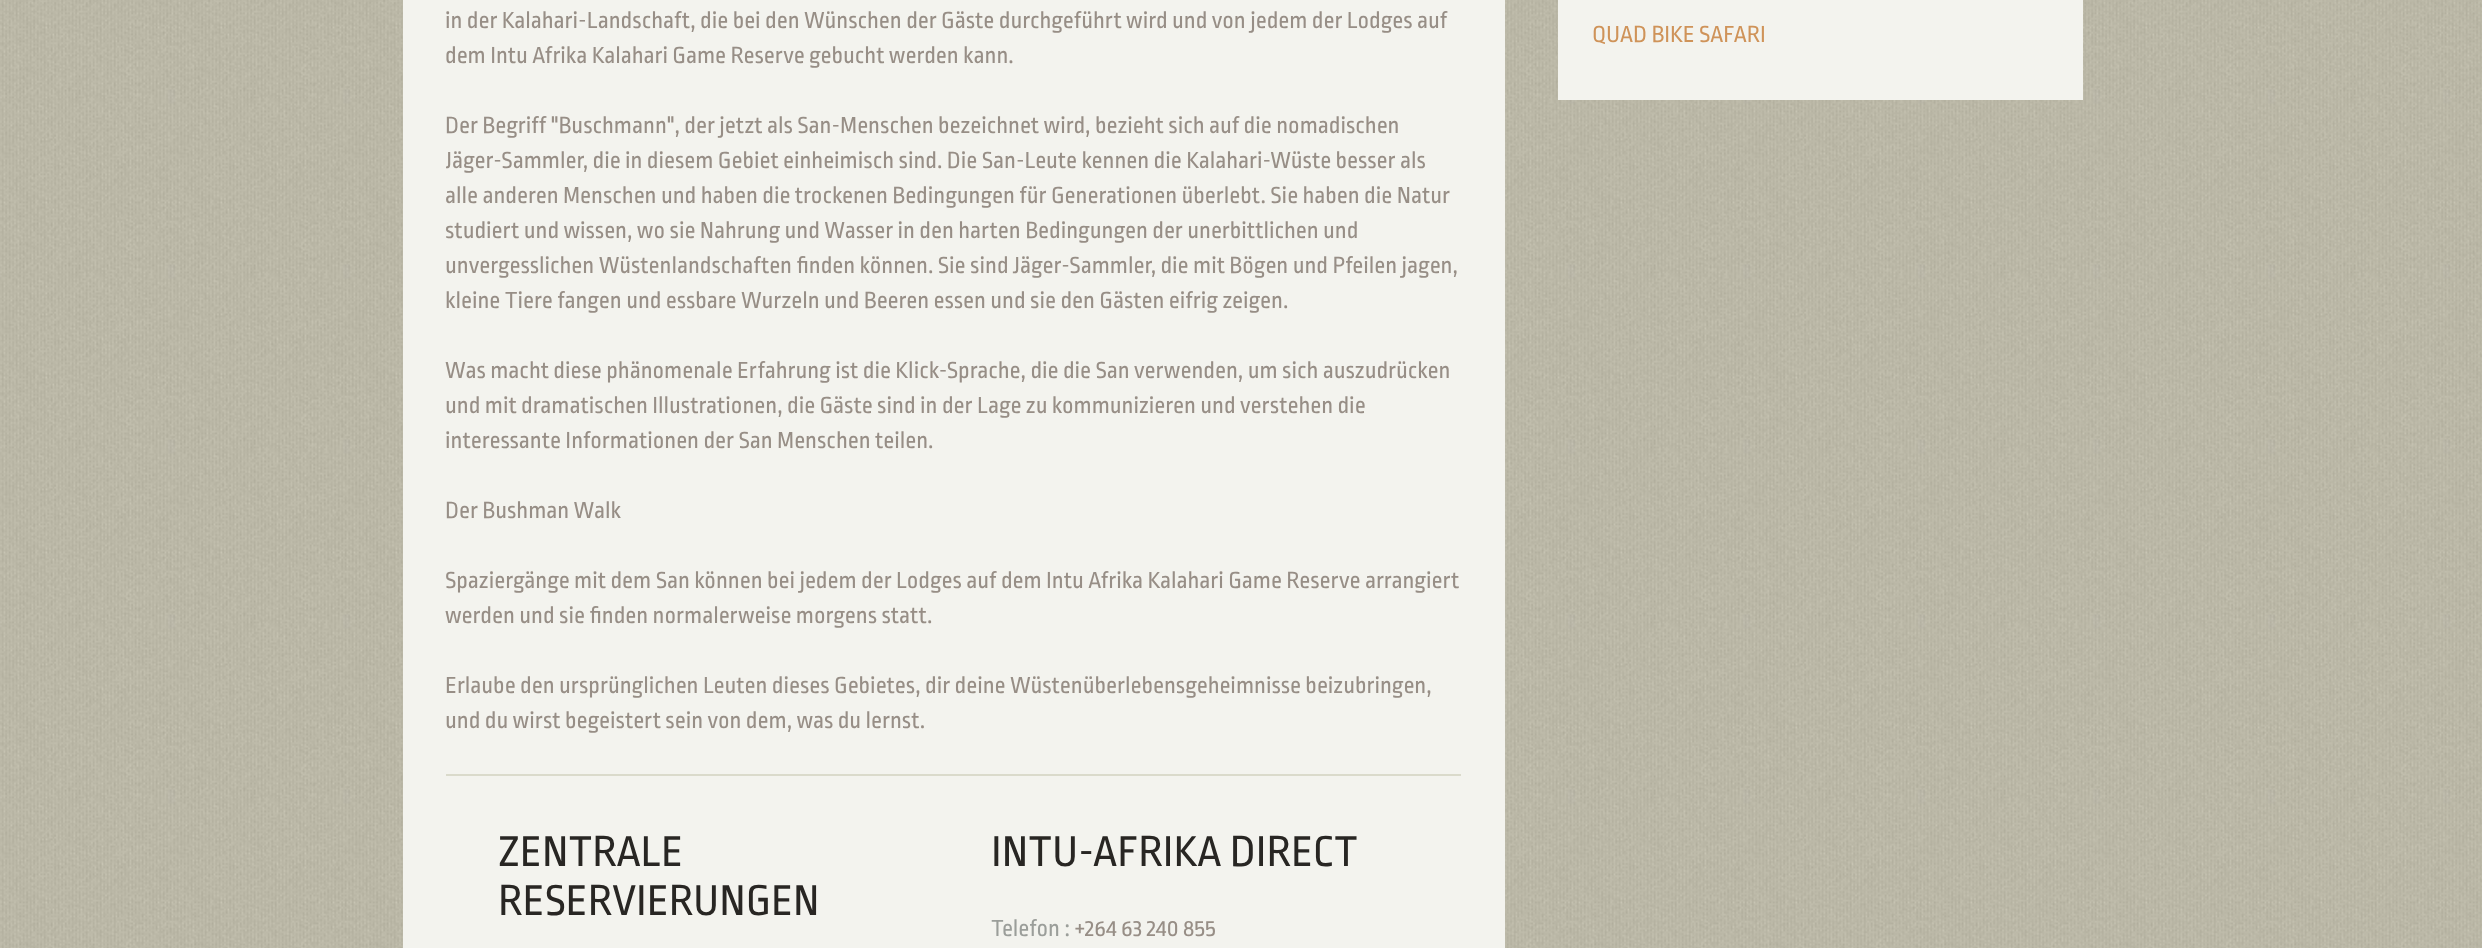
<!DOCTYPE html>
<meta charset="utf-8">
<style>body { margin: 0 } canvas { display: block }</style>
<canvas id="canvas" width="2482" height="948"></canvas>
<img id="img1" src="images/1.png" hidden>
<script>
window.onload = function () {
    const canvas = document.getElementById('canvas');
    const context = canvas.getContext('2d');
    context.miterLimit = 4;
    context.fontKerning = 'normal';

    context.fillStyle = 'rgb(255, 255, 255)';
    context.fillRect(0, 0, 2482, 948);
    context.drawImage(document.getElementById('img1'), 0, 0, 2482, 948);
    context.fillStyle = 'rgb(243, 243, 238)';
    context.fillRect(403, 0, 1102, 948);
    context.fillStyle = 'rgb(218, 218, 203)';
    context.fillRect(446, 774, 1015, 2);
    context.fillStyle = 'rgb(243, 243, 238)';
    context.fillRect(1558, 0, 525, 100);
    context.font = '24.5px Ropa Sans';
    context.fillStyle = 'rgb(151, 142, 134)';
    context.fillText('in der Kalahari-Landschaft, die bei den Wünschen der Gäste durchgeführt wird und von jedem der Lodges auf', 445, 28);
    context.fillText('dem Intu Afrika Kalahari Game Reserve gebucht werden kann.', 445, 63);
    context.fillText('Der Begriff "Buschmann", der jetzt als San-Menschen bezeichnet wird, bezieht sich auf die nomadischen', 445, 133);
    context.save();
    context.beginPath();
    context.rect(446, 0, 1015, 756);
    context.clip();
    context.fillText('Jäger-Sammler, die in diesem Gebiet', 445, 168);
    context.restore();
    context.fillText('einheimisch sind. Die San-Leute kennen die Kalahari-Wüste besser als', 783, 168);
    context.fillText('alle anderen Menschen und haben die trockenen Bedingungen für Generationen überlebt. Sie haben die Natur', 445, 203);
    context.fillText('studiert und wissen, wo sie Nahrung und Wasser in den harten Bedingungen der unerbittlichen und', 445, 238);
    context.fillText('unvergesslichen Wüstenlandschaften finden können. Sie sind Jäger-Sammler, die mit Bögen und Pfeilen jagen,', 445, 273);
    context.fillText('kleine Tiere fangen und essbare Wurzeln und Beeren essen und sie den Gästen eifrig zeigen.', 445, 308);
    context.fillText('Was macht diese phänomenale Erfahrung ist die Klick-Sprache, die die San verwenden, um sich auszudrücken', 445, 378);
    context.fillText('und mit dramatischen Illustrationen, die Gäste sind in der Lage zu kommunizieren und verstehen die', 445, 413);
    context.fillText('interessante Informationen der San Menschen teilen.', 445, 448);
    context.fillText('Der Bushman Walk', 445, 518);
    context.fillText('Spaziergänge mit dem San können bei jedem der Lodges auf dem Intu Afrika Kalahari Game Reserve arrangiert', 445, 588);
    context.fillText('werden und sie finden normalerweise morgens statt.', 445, 623);
    context.fillText('Erlaube den ursprünglichen Leuten dieses Gebietes, dir deine Wüstenüberlebensgeheimnisse beizubringen,', 445, 693);
    context.fillText('und du wirst begeistert sein von dem, was du lernst.', 445, 728);
    context.font = '45.5px Ropa Sans';
    context.fillStyle = 'rgb(40, 38, 35)';
    context.fillText('ZENTRALE', 498, 866);
    context.fillText('RESERVIERUNGEN', 498, 915);
    context.fillText('INTU-AFRIKA DIRECT', 991, 866);
    context.font = '24.5px Ropa Sans';
    context.fillStyle = 'rgb(155, 158, 154)';
    context.fillText('Telefon :', 991, 936);
    context.fillStyle = 'rgb(151, 142, 134)';
    context.fillText('+264 63 240 855', 1075, 936);
    context.fillStyle = 'rgb(207, 147, 89)';
    context.fillText('QUAD BIKE SAFARI', 1592, 42);
};
</script>
